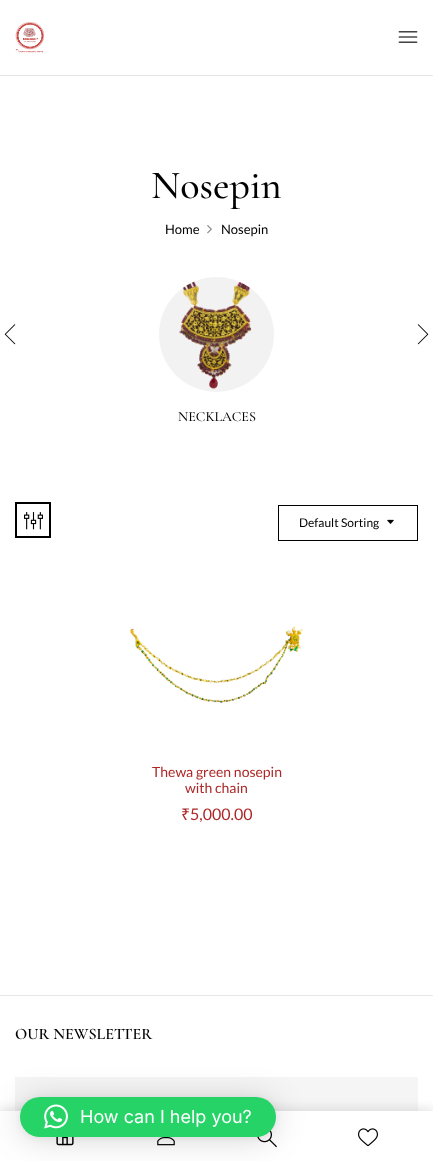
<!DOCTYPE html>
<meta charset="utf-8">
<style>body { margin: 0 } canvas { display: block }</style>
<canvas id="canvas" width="433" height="1161"></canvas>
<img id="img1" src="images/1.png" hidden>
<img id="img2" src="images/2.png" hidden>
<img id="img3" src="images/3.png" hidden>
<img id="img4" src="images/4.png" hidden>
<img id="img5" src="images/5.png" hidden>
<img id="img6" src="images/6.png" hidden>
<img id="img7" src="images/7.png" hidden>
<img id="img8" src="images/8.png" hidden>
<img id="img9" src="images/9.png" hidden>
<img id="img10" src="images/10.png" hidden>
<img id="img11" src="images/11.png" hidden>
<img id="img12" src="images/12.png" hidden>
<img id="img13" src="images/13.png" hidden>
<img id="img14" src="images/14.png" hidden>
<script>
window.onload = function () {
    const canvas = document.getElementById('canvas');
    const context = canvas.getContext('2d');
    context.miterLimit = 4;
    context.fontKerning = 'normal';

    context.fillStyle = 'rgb(255, 255, 255)';
    context.fillRect(0, 0, 433, 1161);
    context.fillStyle = 'rgb(229, 229, 229)';
    context.fillRect(0, 75, 433, 1);
    context.drawImage(document.getElementById('img1'), 15, 22, 29, 31);
    context.drawImage(document.getElementById('img2'), 398, 31, 20, 12);
    context.fillStyle = 'rgb(245, 245, 245)';
    context.fillRect(15, 1077, 403, 34);
    context.fillStyle = 'rgba(144, 144, 144, 0.3)';
    context.filter = 'blur(6px)';
    context.beginPath();
    context.rect(-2, 1110, 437, 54);
    context.fill();
    context.filter = 'none';
    context.fillStyle = 'rgb(255, 255, 255)';
    context.fillRect(0, 1111, 433, 50);
    context.drawImage(document.getElementById('img3'), 56, 1137, 18, 9);
    context.drawImage(document.getElementById('img4'), 157, 1137, 18, 9);
    context.drawImage(document.getElementById('img5'), 257, 1130, 20, 18);
    context.drawImage(document.getElementById('img6'), 358, 1128, 20, 19);
    context.drawImage(document.getElementById('img7'), 207, 225, 5, 9);
    context.drawImage(document.getElementById('img8'), 4, 324, 12, 21);
    context.drawImage(document.getElementById('img9'), 417, 324, 12, 21);
    context.drawImage(document.getElementById('img10'), 159, 277, 115, 115);
    context.strokeStyle = 'rgb(0, 0, 0)';
    context.lineWidth = 2;
    context.strokeRect(16, 503, 34, 34);
    context.drawImage(document.getElementById('img11'), 24, 512, 19, 18);
    context.lineWidth = 1;
    context.strokeRect(278.5, 505.5, 139, 35);
    context.drawImage(document.getElementById('img12'), 387, 519, 7, 5);
    context.drawImage(document.getElementById('img13'), 130, 626, 173, 77);
    context.fillStyle = 'rgb(231, 231, 231)';
    context.fillRect(0, 995, 433, 1);
    context.fillStyle = 'rgba(0, 0, 0, 0.16)';
    context.filter = 'blur(16px)';
    context.beginPath();
    context.roundRect(20, 1099, 256, 40, 20);
    context.fill();
    context.filter = 'none';
    context.fillStyle = 'rgba(0, 0, 0, 0.06)';
    context.filter = 'blur(3px)';
    context.beginPath();
    context.roundRect(20, 1098, 256, 40, 20);
    context.fill();
    context.filter = 'none';
    context.fillStyle = 'rgb(37, 211, 102)';
    context.beginPath();
    context.roundRect(20, 1097, 256, 40, 20);
    context.fill();
    context.drawImage(document.getElementById('img14'), 44, 1104, 24, 25);
    context.font = '500 40px Cormorant Garamond';
    context.fillStyle = 'rgb(0, 0, 0)';
    context.fillText('Nosepin', 151, 198);
    context.font = '13px Lato';
    context.fillText('Home', 165, 234);
    context.fillText('Nosepin', 221, 234);
    context.font = '500 14px Cormorant Garamond';
    context.fillText('NECKLACES', 178, 421);
    context.font = '12px Lato';
    context.fillText('Default Sorting', 299, 527);
    context.font = '14px Lato';
    context.fillStyle = 'rgb(173, 39, 39)';
    context.fillText('Thewa green nosepin', 152, 777);
    context.fillText('with chain', 185, 793);
    context.font = '16px Noto Sans';
    context.fillText('₹', 181, 820);
    context.font = '16px Lato';
    context.fillText('5,000.00', 190, 820);
    context.font = '600 16px Cormorant Garamond';
    context.fillStyle = 'rgb(0, 0, 0)';
    context.fillText('OUR NEWSLETTER', 15, 1039);
    context.font = '18px Inter';
    context.fillStyle = 'rgb(255, 255, 255)';
    context.fillText('How can I help you?', 80, 1123);
};
</script>
